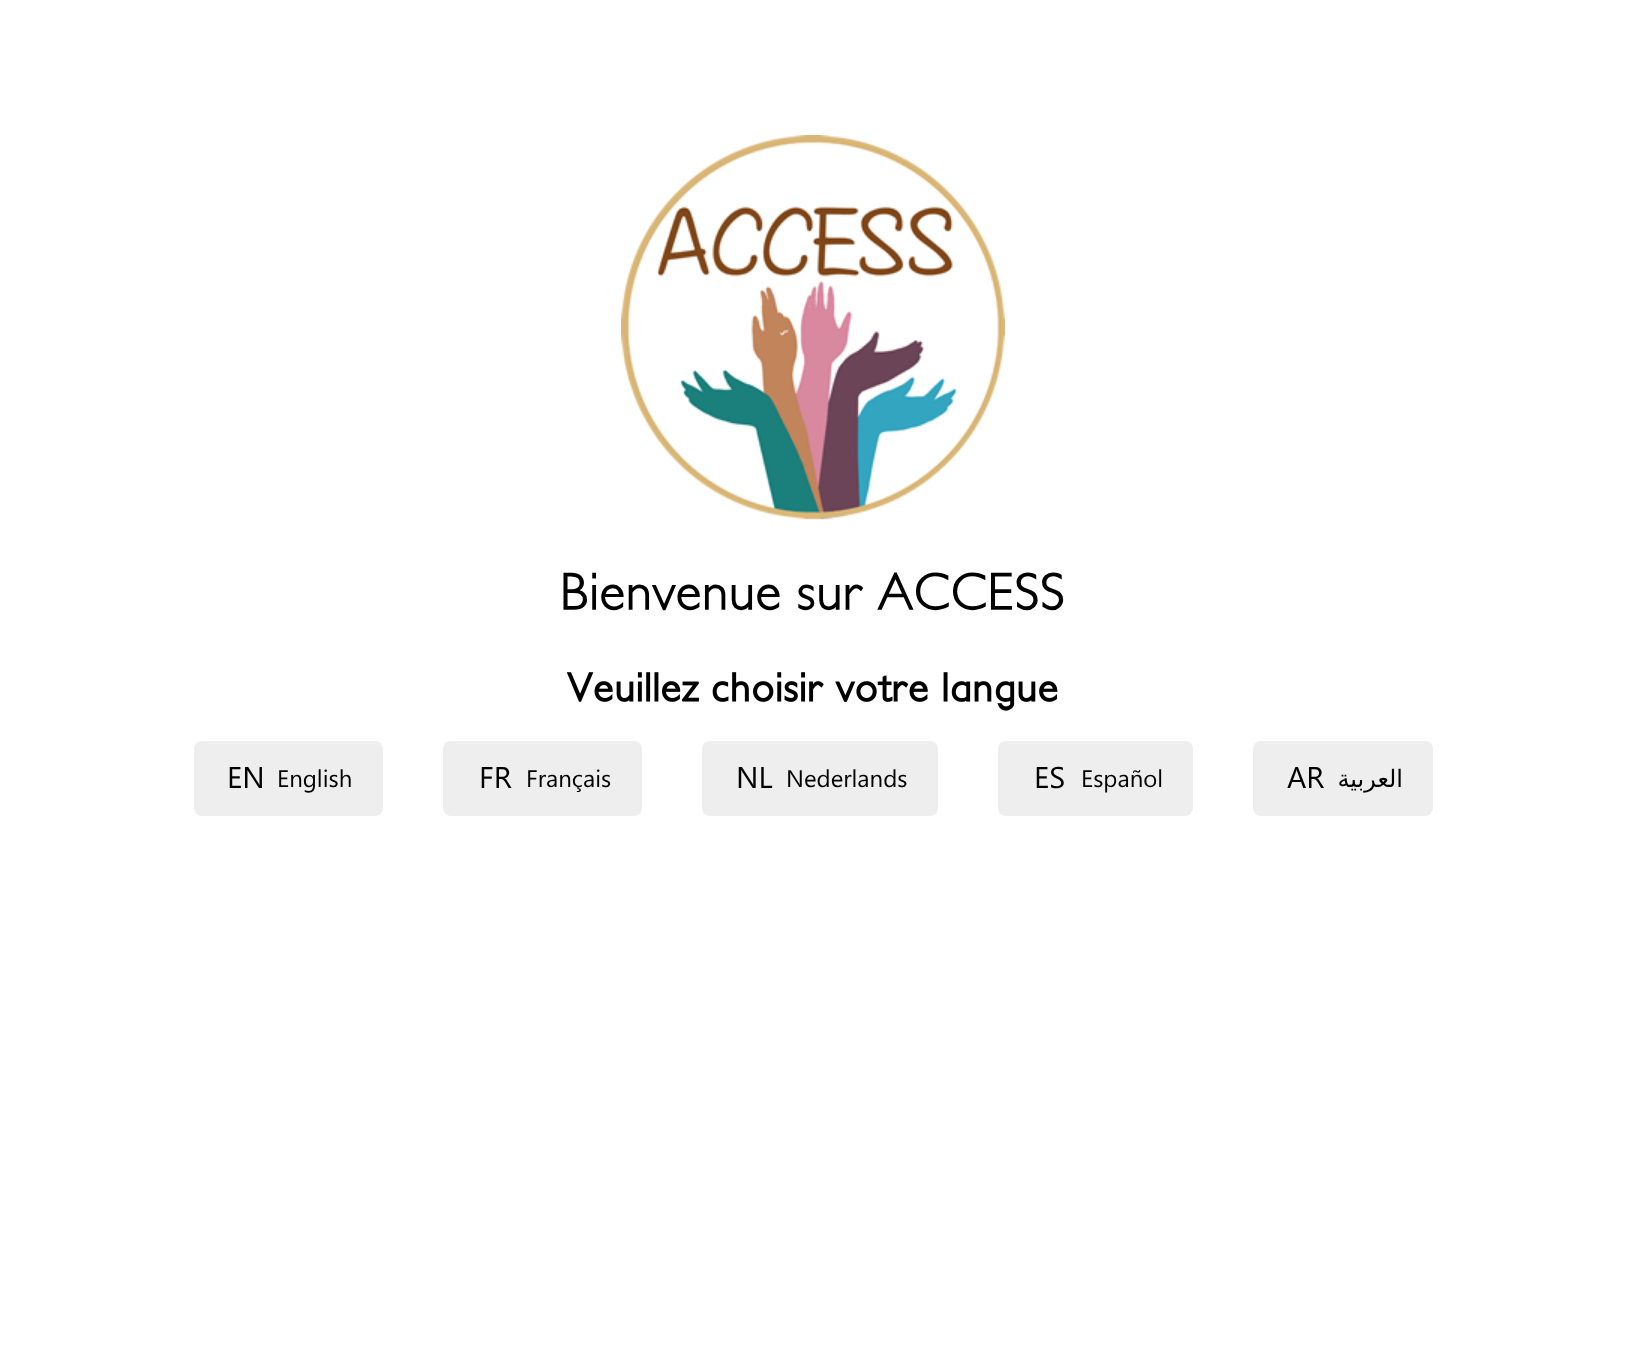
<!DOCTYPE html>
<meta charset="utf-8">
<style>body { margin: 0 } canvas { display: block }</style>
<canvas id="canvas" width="1625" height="1356"></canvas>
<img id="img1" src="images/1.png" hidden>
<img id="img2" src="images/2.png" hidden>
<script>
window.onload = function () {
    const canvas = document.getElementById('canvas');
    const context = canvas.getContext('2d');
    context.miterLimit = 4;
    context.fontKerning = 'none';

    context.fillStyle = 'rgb(255, 255, 255)';
    context.fillRect(0, 0, 1625, 1356);
    context.drawImage(document.getElementById('img1'), 621, 135, 384, 385);
    context.drawImage(document.getElementById('img2'), 566, 672, 492, 39);
    context.fillStyle = 'rgb(238, 238, 238)';
    context.beginPath();
    context.roundRect(194, 741, 189, 75, 8);
    context.fill();
    context.beginPath();
    context.roundRect(443, 741, 199, 75, 8);
    context.fill();
    context.beginPath();
    context.roundRect(702, 741, 236, 75, 8);
    context.fill();
    context.beginPath();
    context.roundRect(998, 741, 195, 75, 8);
    context.fill();
    context.beginPath();
    context.roundRect(1253, 741, 180, 75, 8);
    context.fill();
    context.font = '500 52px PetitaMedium';
    context.fillStyle = 'rgb(0, 0, 0)';
    context.fillText('Bienvenue sur ACCESS', 560, 609);
    context.font = '30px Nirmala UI';
    context.fillText('EN', 227, 788);
    context.font = '24px Nirmala UI';
    context.fillText('English', 277, 787);
    context.font = '30px Nirmala UI';
    context.fillText('FR', 479, 788);
    context.font = '24px Nirmala UI';
    context.fillText('Français', 526, 787);
    context.font = '30px Nirmala UI';
    context.fillText('NL', 736, 788);
    context.font = '24px Nirmala UI';
    context.fillText('Nederlands', 786, 787);
    context.font = '30px Nirmala UI';
    context.fillText('ES', 1034, 788);
    context.font = '24px Nirmala UI';
    context.fillText('Español', 1081, 787);
    context.font = '30px Nirmala UI';
    context.fillText('AR', 1287, 788);
    context.direction = 'rtl';
    context.font = '24px DejaVu Sans';
    context.fillText('العربية', 1403, 787);
};
</script>
